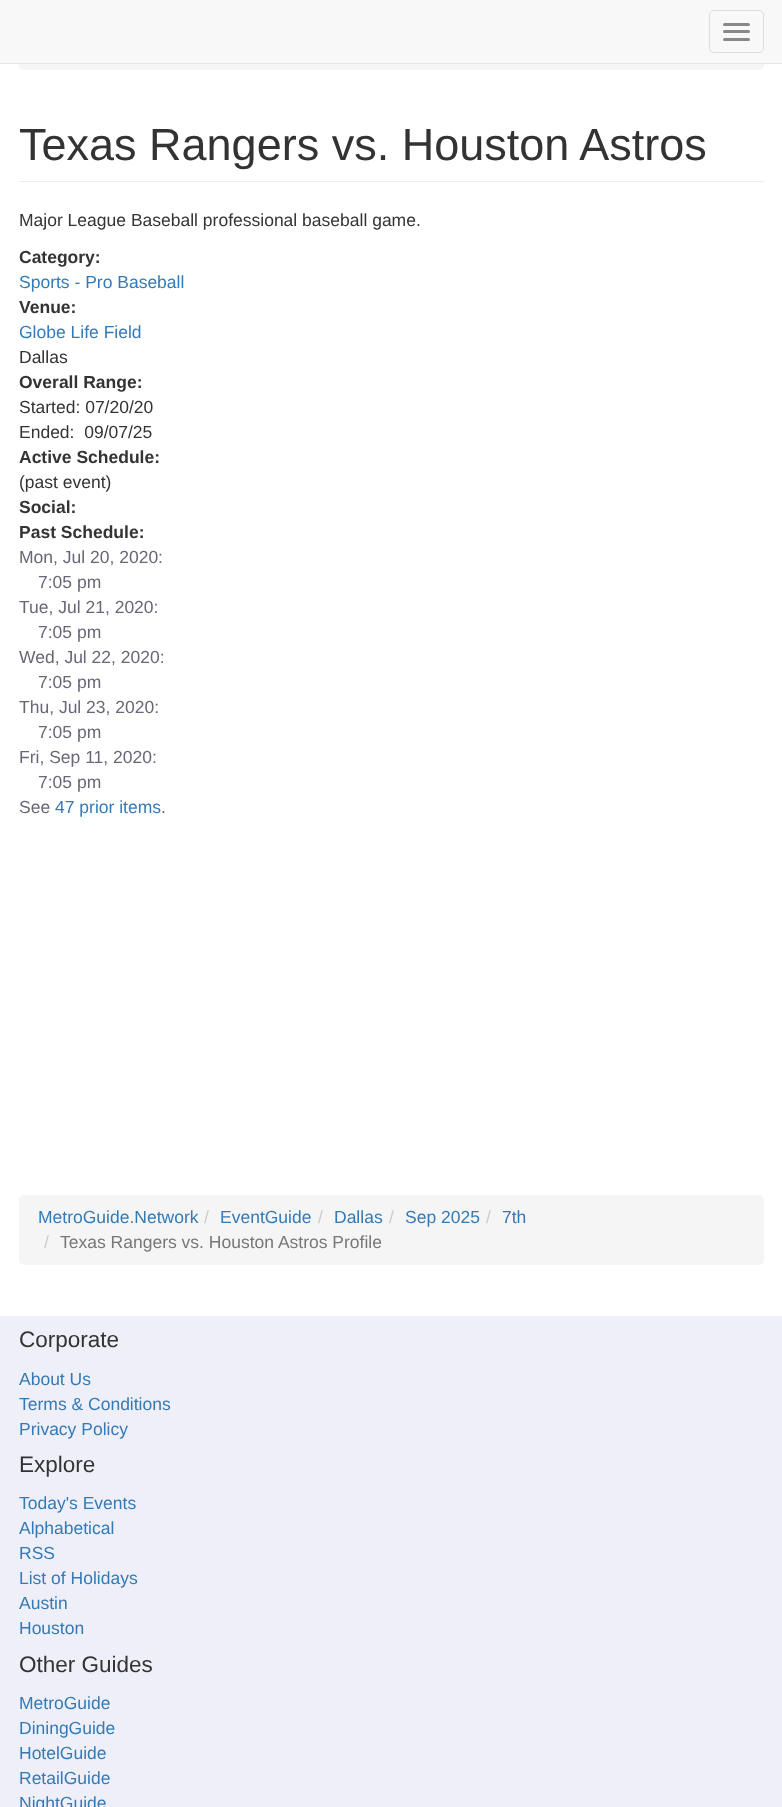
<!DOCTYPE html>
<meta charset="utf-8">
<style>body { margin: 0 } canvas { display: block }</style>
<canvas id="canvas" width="782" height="1807"></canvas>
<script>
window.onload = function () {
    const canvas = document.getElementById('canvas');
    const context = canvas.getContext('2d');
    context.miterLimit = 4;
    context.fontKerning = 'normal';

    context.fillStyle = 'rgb(255, 255, 255)';
    context.fillRect(0, 0, 782, 1807);
    context.fillStyle = 'rgb(245, 245, 245)';
    context.beginPath();
    context.roundRect(19, 0, 745, 70, 5);
    context.fill();
    context.fillStyle = 'rgb(248, 248, 248)';
    context.fillRect(0, 0, 782, 63);
    context.fillStyle = 'rgb(231, 231, 231)';
    context.fillRect(0, 63, 782, 1);
    context.beginPath();
    context.roundRect(709.5, 10.5, 54, 42, 4.5);
    context.strokeStyle = 'rgb(221, 221, 221)';
    context.stroke();
    context.fillStyle = 'rgb(136, 136, 136)';
    context.beginPath();
    context.roundRect(723, 23, 27, 3, 1.5);
    context.fill();
    context.beginPath();
    context.roundRect(723, 30, 27, 3, 1.5);
    context.fill();
    context.beginPath();
    context.roundRect(723, 38, 27, 3, 1.5);
    context.fill();
    context.fillStyle = 'rgb(238, 238, 238)';
    context.fillRect(19, 181, 745, 1);
    context.fillStyle = 'rgb(245, 245, 245)';
    context.beginPath();
    context.roundRect(19, 1195, 745, 70, 5);
    context.fill();
    context.fillStyle = 'rgb(239, 239, 250)';
    context.fillRect(0, 1316, 782, 491);
    context.font = '45px Liberation Sans';
    context.fillStyle = 'rgb(51, 51, 51)';
    context.fillText('Texas Rangers vs. Houston Astros', 19, 160);
    context.font = '17.5px Liberation Sans';
    context.fillText('Major League Baseball professional baseball game.', 19, 226);
    context.font = 'bold 17.5px Liberation Sans';
    context.fillText('Category:', 19, 263);
    context.font = '17.5px Liberation Sans';
    context.fillStyle = 'rgb(51, 122, 183)';
    context.fillText('Sports - Pro Baseball', 19, 288);
    context.font = 'bold 17.5px Liberation Sans';
    context.fillStyle = 'rgb(51, 51, 51)';
    context.fillText('Venue:', 19, 313);
    context.font = '17.5px Liberation Sans';
    context.fillStyle = 'rgb(51, 122, 183)';
    context.fillText('Globe Life Field', 19, 338);
    context.fillStyle = 'rgb(51, 51, 51)';
    context.fillText('Dallas', 19, 363);
    context.font = 'bold 17.5px Liberation Sans';
    context.fillText('Overall Range:', 19, 388);
    context.font = '17.5px Liberation Sans';
    context.fillText('Started: 07/20/20', 19, 413);
    context.fillText('Ended:  09/07/25', 19, 438);
    context.font = 'bold 17.5px Liberation Sans';
    context.fillText('Active Schedule:', 19, 463);
    context.font = '17.5px Liberation Sans';
    context.fillText('(past event)', 19, 488);
    context.font = 'bold 17.5px Liberation Sans';
    context.fillText('Social:', 19, 513);
    context.fillText('Past Schedule:', 19, 538);
    context.font = '17.5px Liberation Sans';
    context.fillStyle = 'rgb(103, 103, 119)';
    context.fillText('Mon, Jul 20, 2020:', 19, 563);
    context.fillText('7:05 pm', 38, 588);
    context.fillText('Tue, Jul 21, 2020:', 19, 613);
    context.fillText('7:05 pm', 38, 638);
    context.fillText('Wed, Jul 22, 2020:', 19, 663);
    context.fillText('7:05 pm', 38, 688);
    context.fillText('Thu, Jul 23, 2020:', 19, 713);
    context.fillText('7:05 pm', 38, 738);
    context.fillText('Fri, Sep 11, 2020:', 19, 763);
    context.fillText('7:05 pm', 38, 788);
    context.fillText('See', 19, 813);
    context.fillStyle = 'rgb(51, 122, 183)';
    context.fillText('47 prior items', 55, 813);
    context.fillStyle = 'rgb(103, 103, 119)';
    context.fillText('.', 161, 813);
    context.fillStyle = 'rgb(51, 122, 183)';
    context.fillText('MetroGuide.Network', 38, 1223);
    context.fillStyle = 'rgb(204, 204, 204)';
    context.fillText('/', 204, 1223);
    context.fillStyle = 'rgb(51, 122, 183)';
    context.fillText('EventGuide', 220, 1223);
    context.fillStyle = 'rgb(204, 204, 204)';
    context.fillText('/', 318, 1223);
    context.fillStyle = 'rgb(51, 122, 183)';
    context.fillText('Dallas', 334, 1223);
    context.fillStyle = 'rgb(204, 204, 204)';
    context.fillText('/', 389, 1223);
    context.fillStyle = 'rgb(51, 122, 183)';
    context.fillText('Sep 2025', 405, 1223);
    context.fillStyle = 'rgb(204, 204, 204)';
    context.fillText('/', 486, 1223);
    context.fillStyle = 'rgb(51, 122, 183)';
    context.fillText('7th', 502, 1223);
    context.fillStyle = 'rgb(204, 204, 204)';
    context.fillText('/', 44, 1248);
    context.fillStyle = 'rgb(119, 119, 119)';
    context.fillText('Texas Rangers vs. Houston Astros Profile', 60, 1248);
    context.font = '22.5px Liberation Sans';
    context.fillStyle = 'rgb(51, 51, 51)';
    context.fillText('Corporate', 19, 1347);
    context.font = '17.5px Liberation Sans';
    context.fillStyle = 'rgb(51, 122, 183)';
    context.fillText('About Us', 19, 1385);
    context.fillText('Terms & Conditions', 19, 1410);
    context.fillText('Privacy Policy', 19, 1435);
    context.font = '22.5px Liberation Sans';
    context.fillStyle = 'rgb(51, 51, 51)';
    context.fillText('Explore', 19, 1472);
    context.font = '17.5px Liberation Sans';
    context.fillStyle = 'rgb(51, 122, 183)';
    context.fillText('Today\'s Events', 19, 1509);
    context.fillText('Alphabetical', 19, 1534);
    context.fillText('RSS', 19, 1559);
    context.fillText('List of Holidays', 19, 1584);
    context.fillText('Austin', 19, 1609);
    context.fillText('Houston', 19, 1634);
    context.font = '22.5px Liberation Sans';
    context.fillStyle = 'rgb(51, 51, 51)';
    context.fillText('Other Guides', 19, 1672);
    context.font = '17.5px Liberation Sans';
    context.fillStyle = 'rgb(51, 122, 183)';
    context.fillText('MetroGuide', 19, 1709);
    context.fillText('DiningGuide', 19, 1734);
    context.fillText('HotelGuide', 19, 1759);
    context.fillText('RetailGuide', 19, 1784);
    context.fillText('NightGuide', 19, 1809);
};
</script>
